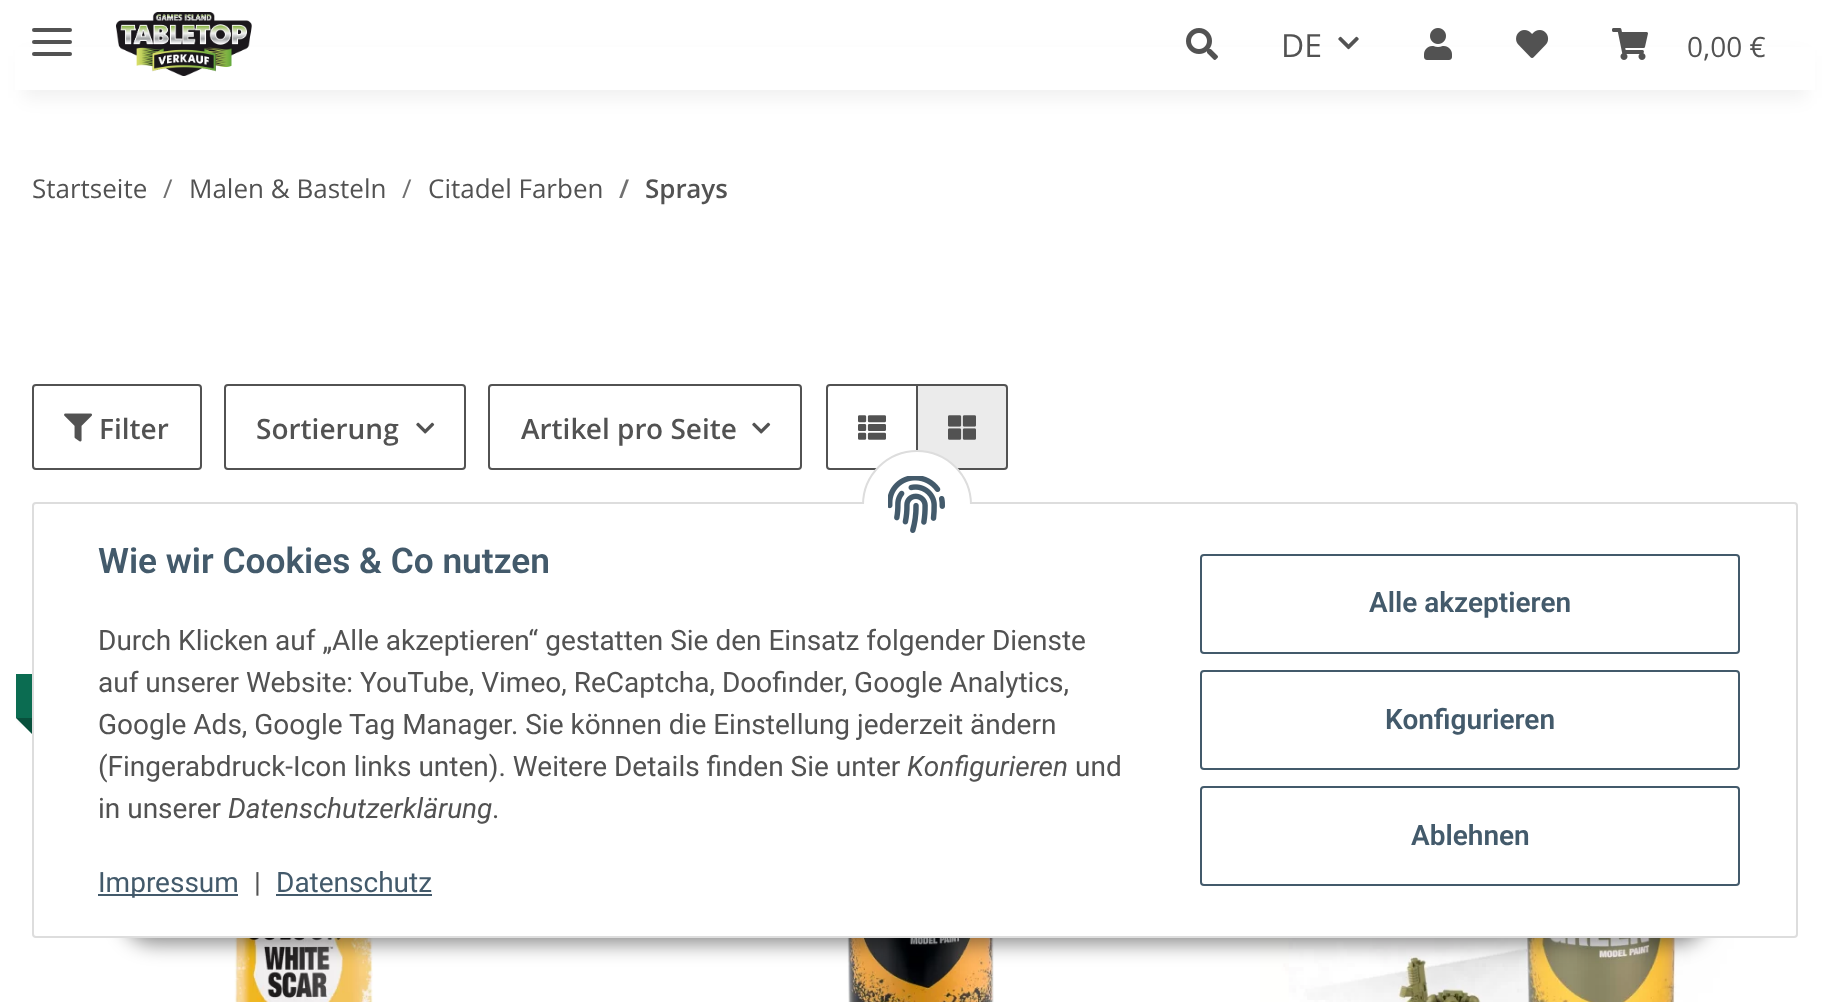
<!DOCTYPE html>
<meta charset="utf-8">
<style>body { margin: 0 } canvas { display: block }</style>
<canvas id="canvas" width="1829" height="1002"></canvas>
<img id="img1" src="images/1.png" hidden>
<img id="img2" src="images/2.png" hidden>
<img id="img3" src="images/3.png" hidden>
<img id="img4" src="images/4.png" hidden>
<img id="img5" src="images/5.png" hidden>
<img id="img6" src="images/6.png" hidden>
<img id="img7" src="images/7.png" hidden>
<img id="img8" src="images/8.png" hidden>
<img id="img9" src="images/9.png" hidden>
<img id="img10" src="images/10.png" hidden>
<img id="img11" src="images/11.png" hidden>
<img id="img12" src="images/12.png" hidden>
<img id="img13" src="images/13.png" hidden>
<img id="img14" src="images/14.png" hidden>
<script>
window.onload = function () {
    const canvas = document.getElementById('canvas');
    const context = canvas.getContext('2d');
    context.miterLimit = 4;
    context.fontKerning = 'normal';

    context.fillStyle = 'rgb(255, 255, 255)';
    context.fillRect(0, 0, 1829, 1002);
    context.fillStyle = 'rgba(0, 0, 0, 0.06)';
    context.filter = 'blur(9px)';
    context.beginPath();
    context.rect(24, 56, 1782, 42);
    context.fill();
    context.filter = 'none';
    context.fillStyle = 'rgb(255, 255, 255)';
    context.fillRect(15, 47, 1800, 43);
    context.fillStyle = 'rgb(82, 82, 82)';
    context.beginPath();
    context.roundRect(32, 40, 40, 4, 2);
    context.fill();
    context.beginPath();
    context.roundRect(32, 28, 40, 4, 2);
    context.fill();
    context.beginPath();
    context.roundRect(32, 52, 40, 4, 2);
    context.fill();
    context.drawImage(document.getElementById('img1'), 116, 12, 136, 64);
    context.drawImage(document.getElementById('img2'), 1186, 28, 32, 32);
    context.drawImage(document.getElementById('img3'), 1338, 36, 21, 14);
    context.drawImage(document.getElementById('img4'), 1424, 28, 28, 32);
    context.drawImage(document.getElementById('img5'), 1516, 30, 33, 28);
    context.drawImage(document.getElementById('img6'), 1612, 28, 36, 32);
    context.beginPath();
    context.roundRect(33, 385, 168, 84, 3);
    context.strokeStyle = 'rgb(82, 82, 82)';
    context.lineWidth = 2;
    context.stroke();
    context.drawImage(document.getElementById('img7'), 64, 413, 28, 29);
    context.beginPath();
    context.roundRect(225, 385, 240, 84, 3);
    context.stroke();
    context.drawImage(document.getElementById('img8'), 416, 422, 19, 12);
    context.beginPath();
    context.roundRect(489, 385, 312, 84, 3);
    context.stroke();
    context.drawImage(document.getElementById('img8'), 752, 422, 19, 12);
    context.beginPath();
    context.roundRect(827, 385, 90, 84, [3, 0, 0, 3]);
    context.stroke();
    context.drawImage(document.getElementById('img9'), 858, 415, 28, 25);
    context.fillStyle = 'rgb(235, 235, 235)';
    context.beginPath();
    context.roundRect(917, 385, 90, 84, [0, 3, 3, 0]);
    context.fill();
    context.stroke();
    context.drawImage(document.getElementById('img10'), 948, 415, 28, 25);
    context.fillStyle = 'rgba(0, 0, 0, 0.3)';
    context.filter = 'blur(2px)';
    context.beginPath();
    context.roundRect(20, 678, 160, 44, 4);
    context.fill();
    context.filter = 'none';
    context.fillStyle = 'rgb(11, 108, 81)';
    context.fillRect(16, 674, 16, 44);
    context.fillStyle = 'rgb(8, 80, 60)';
    context.beginPath();
    context.moveTo(32, 718);
    context.lineTo(32, 734);
    context.lineTo(16, 718);
    context.closePath();
    context.fill();
    context.drawImage(document.getElementById('img11'), 234, 938, 139, 64);
    context.drawImage(document.getElementById('img12'), 847, 938, 147, 64);
    context.drawImage(document.getElementById('img13'), 1259, 938, 515, 64);
    context.fillStyle = 'rgba(0, 0, 0, 0.45)';
    context.filter = 'blur(10px)';
    context.beginPath();
    context.roundRect(122, 880, 1586, 64, 32);
    context.fill();
    context.filter = 'none';
    context.fillStyle = 'rgb(255, 255, 255)';
    context.beginPath();
    context.roundRect(33, 503, 1764, 434, 3);
    context.fill();
    context.strokeStyle = 'rgb(221, 221, 221)';
    context.stroke();
    context.beginPath();
    context.arc(917, 505, 54, 0, 2 * Math.PI);
    context.fill();
    context.stroke();
    context.fillRect(862, 504, 110, 56);
    context.drawImage(document.getElementById('img14'), 888, 476, 57, 57);
    context.fillStyle = 'rgb(67, 90, 107)';
    context.fillRect(98, 894, 140, 2);
    context.fillRect(276, 894, 156, 2);
    context.beginPath();
    context.roundRect(1201, 555, 538, 98, 3);
    context.strokeStyle = 'rgb(67, 90, 107)';
    context.stroke();
    context.beginPath();
    context.roundRect(1201, 671, 538, 98, 3);
    context.stroke();
    context.beginPath();
    context.roundRect(1201, 787, 538, 98, 3);
    context.stroke();
    context.font = '32px Open Sans';
    context.fillStyle = 'rgb(82, 82, 82)';
    context.fillText('DE', 1281, 57);
    context.font = '28px Open Sans';
    context.fillText('0,00 €', 1687, 57);
    context.font = '26px Open Sans';
    context.fillText('Startseite', 32, 198);
    context.fillStyle = 'rgb(112, 112, 112)';
    context.fillText('/', 163, 198);
    context.fillStyle = 'rgb(82, 82, 82)';
    context.fillText('Malen & Basteln', 189, 198);
    context.fillStyle = 'rgb(112, 112, 112)';
    context.fillText('/', 402, 198);
    context.fillStyle = 'rgb(82, 82, 82)';
    context.fillText('Citadel Farben', 428, 198);
    context.font = '600 26px Open Sans';
    context.fillStyle = 'rgb(112, 112, 112)';
    context.fillText('/', 619, 198);
    context.fillStyle = 'rgb(82, 82, 82)';
    context.fillText('Sprays', 645, 198);
    context.font = '600 28px Open Sans';
    context.fillText('Filter', 99, 439);
    context.fillText('Sortierung', 256, 439);
    context.fillText('Artikel pro Seite', 521, 439);
    context.font = '600 35.25px Roboto';
    context.fillStyle = 'rgb(67, 90, 107)';
    context.fillText('Wie wir Cookies & Co nutzen', 98, 573);
    context.font = '28px Roboto';
    context.fillStyle = 'rgb(82, 82, 82)';
    context.fillText('Durch Klicken auf „Alle akzeptieren“ gestatten Sie den Einsatz folgender Dienste', 98, 650);
    context.fillText('auf unserer Website: YouTube, Vimeo, ReCaptcha, Doofinder, Google Analytics,', 98, 692);
    context.fillText('Google Ads, Google Tag Manager. Sie können die Einstellung jederzeit ändern', 98, 734);
    context.fillText('(Fingerabdruck-Icon links unten). Weitere Details finden Sie unter', 98, 776);
    context.font = 'italic 28px Roboto';
    context.fillText('Konfigurieren', 907, 776);
    context.font = '28px Roboto';
    context.fillText('und', 1075, 776);
    context.fillText('in unserer', 98, 818);
    context.font = 'italic 28px Roboto';
    context.fillText('Datenschutzerklärung', 228, 818);
    context.font = '28px Roboto';
    context.fillText('.', 492, 818);
    context.fillStyle = 'rgb(67, 90, 107)';
    context.fillText('Impressum', 98, 892);
    context.fillStyle = 'rgb(82, 82, 82)';
    context.fillText('|', 254, 892);
    context.fillStyle = 'rgb(67, 90, 107)';
    context.fillText('Datenschutz', 276, 892);
    context.font = '600 28px Roboto';
    context.fillText('Alle akzeptieren', 1369, 612);
    context.fillText('Konfigurieren', 1385, 729);
    context.fillText('Ablehnen', 1411, 845);
};
</script>
